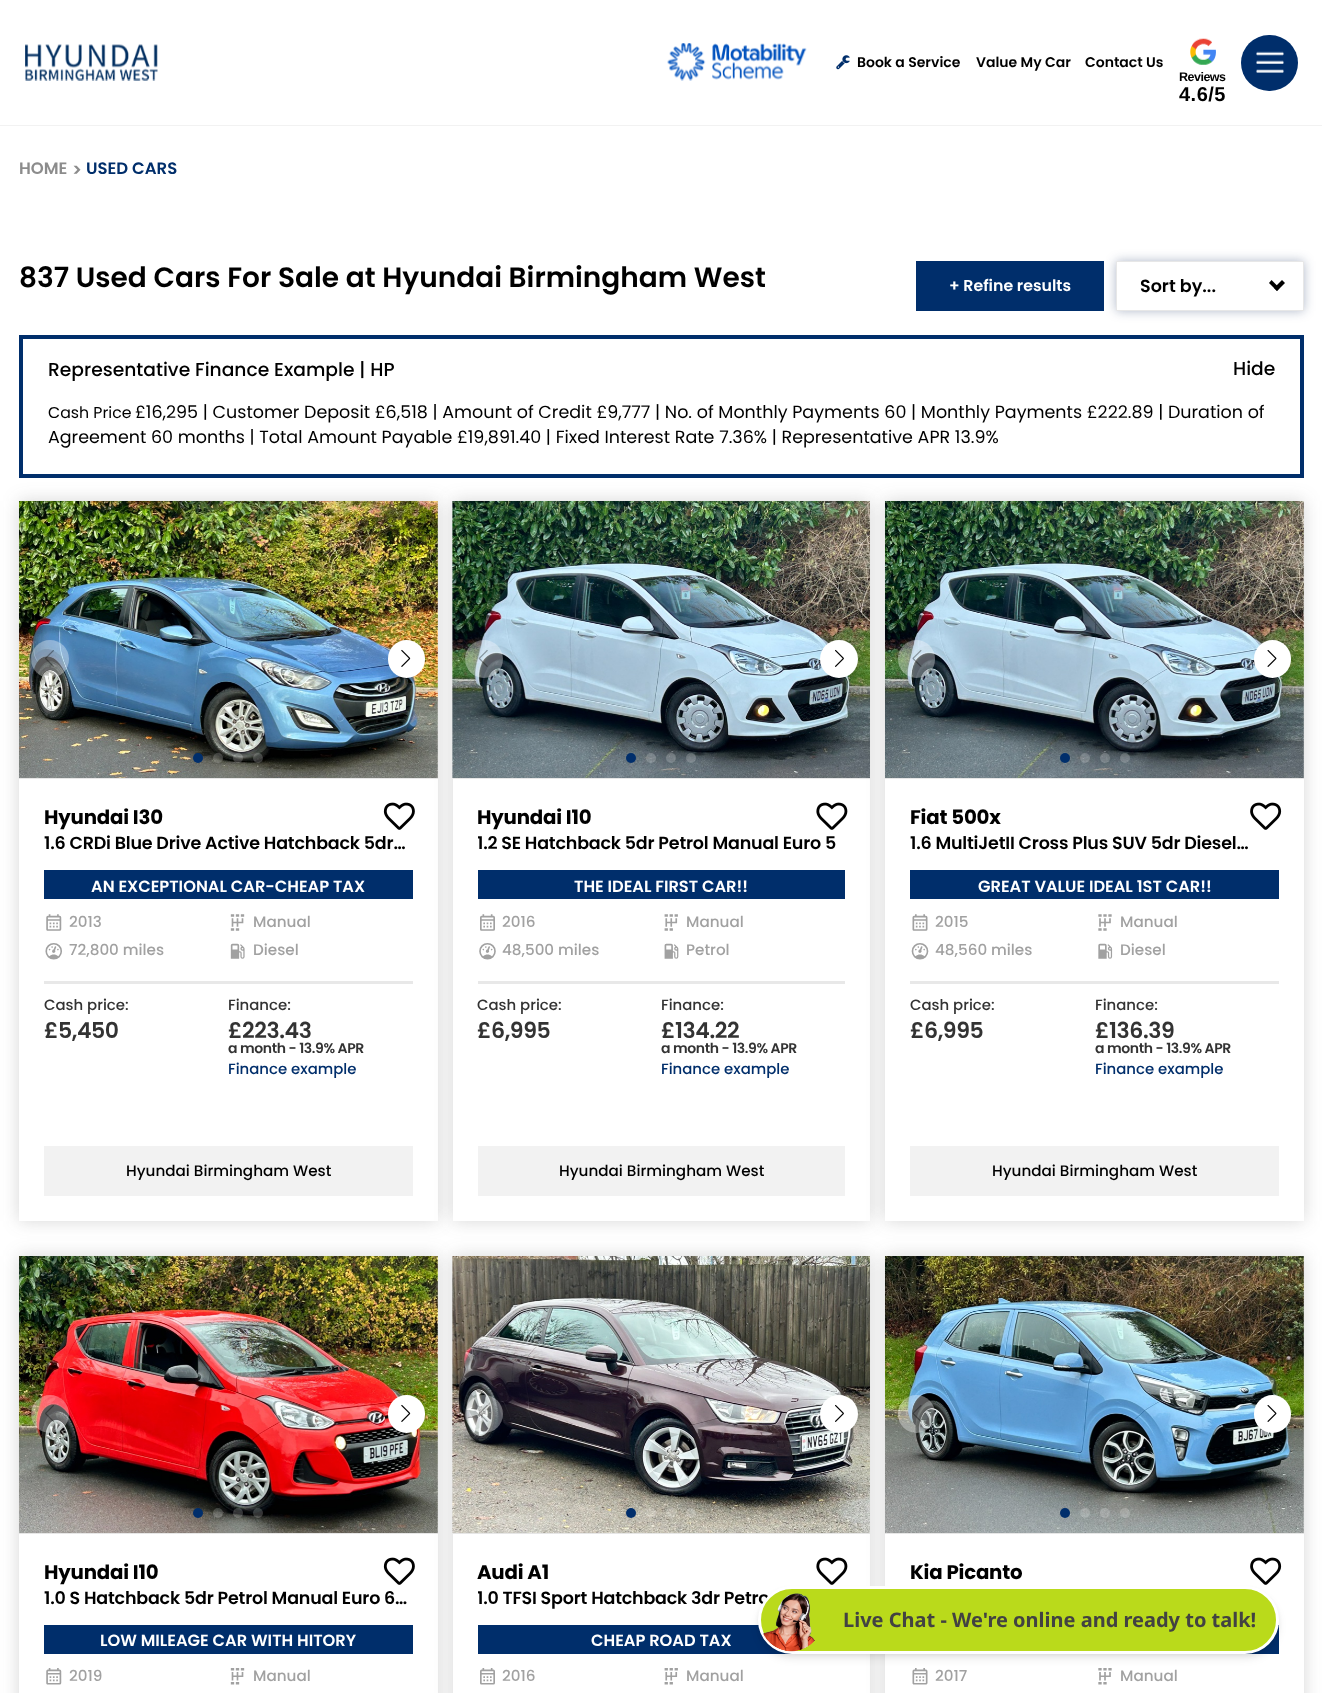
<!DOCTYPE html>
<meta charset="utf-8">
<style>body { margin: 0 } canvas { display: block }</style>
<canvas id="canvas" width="1322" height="1693"></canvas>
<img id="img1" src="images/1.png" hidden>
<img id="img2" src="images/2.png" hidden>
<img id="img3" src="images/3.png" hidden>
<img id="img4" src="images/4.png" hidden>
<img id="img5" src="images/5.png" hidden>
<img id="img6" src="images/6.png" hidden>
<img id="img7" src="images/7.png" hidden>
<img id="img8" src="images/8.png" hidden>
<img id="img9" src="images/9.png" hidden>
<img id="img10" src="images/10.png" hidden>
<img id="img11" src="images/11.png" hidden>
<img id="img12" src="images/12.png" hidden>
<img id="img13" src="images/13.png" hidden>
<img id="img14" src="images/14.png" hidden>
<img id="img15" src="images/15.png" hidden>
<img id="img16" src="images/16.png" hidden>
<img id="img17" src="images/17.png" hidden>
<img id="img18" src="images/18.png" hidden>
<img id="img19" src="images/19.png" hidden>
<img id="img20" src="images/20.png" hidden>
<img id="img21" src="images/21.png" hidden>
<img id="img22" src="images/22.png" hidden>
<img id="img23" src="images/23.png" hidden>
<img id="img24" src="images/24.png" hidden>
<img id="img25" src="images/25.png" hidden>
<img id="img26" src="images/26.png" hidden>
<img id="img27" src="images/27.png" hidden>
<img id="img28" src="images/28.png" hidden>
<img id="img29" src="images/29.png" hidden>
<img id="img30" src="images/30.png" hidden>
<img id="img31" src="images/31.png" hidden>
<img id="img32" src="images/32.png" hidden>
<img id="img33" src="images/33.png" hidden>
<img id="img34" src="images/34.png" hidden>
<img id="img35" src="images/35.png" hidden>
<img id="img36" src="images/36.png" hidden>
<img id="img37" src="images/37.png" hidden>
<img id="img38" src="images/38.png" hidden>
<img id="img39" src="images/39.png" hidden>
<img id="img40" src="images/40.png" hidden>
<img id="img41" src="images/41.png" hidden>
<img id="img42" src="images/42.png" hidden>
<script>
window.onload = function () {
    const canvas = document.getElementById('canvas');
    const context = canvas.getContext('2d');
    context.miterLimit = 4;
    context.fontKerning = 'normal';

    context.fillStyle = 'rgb(255, 255, 255)';
    context.fillRect(0, 0, 1322, 1693);
    context.fillStyle = 'rgb(242, 242, 242)';
    context.beginPath();
    context.moveTo(0, 125);
    context.lineTo(0, 126);
    context.lineTo(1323, 126);
    context.lineTo(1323, 1);
    context.lineTo(1322, 1);
    context.lineTo(1322, 125);
    context.closePath();
    context.fill();
    context.drawImage(document.getElementById('img1'), 25, 44, 133, 37);
    context.drawImage(document.getElementById('img2'), 667, 43, 140, 38);
    context.drawImage(document.getElementById('img3'), 836, 55, 14, 15);
    context.fillStyle = 'rgb(0, 46, 107)';
    context.beginPath();
    context.roundRect(1241, 35, 57, 56, 28);
    context.fill();
    context.drawImage(document.getElementById('img4'), 1256, 51, 28, 22);
    context.drawImage(document.getElementById('img5'), 1190, 38, 26, 27);
    context.fillRect(916, 261, 188, 50);
    context.fillStyle = 'rgba(2, 26, 81, 0.31)';
    context.filter = 'blur(5.5px)';
    context.beginPath();
    context.rect(1116, 261, 188, 50);
    context.fill();
    context.filter = 'none';
    context.fillStyle = 'rgb(255, 255, 255)';
    context.beginPath();
    context.rect(1116.5, 261.5, 187, 49);
    context.fill();
    context.strokeStyle = 'rgb(231, 231, 231)';
    context.stroke();
    context.fillStyle = 'rgb(0, 0, 0)';
    context.beginPath();
    context.moveTo(1285, 283);
    context.lineTo(1277, 291);
    context.lineTo(1274, 288);
    context.lineTo(1282, 280);
    context.closePath();
    context.fill();
    context.beginPath();
    context.moveTo(1279.5, 288);
    context.lineTo(1277, 291);
    context.lineTo(1269, 283);
    context.lineTo(1271.5, 280);
    context.closePath();
    context.fill();
    context.strokeStyle = 'rgb(0, 46, 107)';
    context.lineWidth = 4;
    context.strokeRect(21, 337, 1281, 139);
    context.fillStyle = 'rgba(62, 62, 62, 0.21)';
    context.filter = 'blur(9px)';
    context.beginPath();
    context.rect(19, 501, 419, 720);
    context.fill();
    context.filter = 'none';
    context.fillStyle = 'rgb(255, 255, 255)';
    context.fillRect(19, 501, 419, 720);
    context.fillStyle = 'rgb(230, 230, 230)';
    context.fillRect(19, 778, 419, 1);
    context.fillStyle = 'rgba(62, 62, 62, 0.21)';
    context.filter = 'blur(9px)';
    context.beginPath();
    context.rect(453, 501, 417, 720);
    context.fill();
    context.filter = 'none';
    context.drawImage(document.getElementById('img6'), 19, 501, 419, 277);
    context.fillStyle = 'rgba(255, 255, 255, 0.35)';
    context.beginPath();
    context.arc(50, 659, 19, 0, 2 * Math.PI);
    context.fill();
    context.drawImage(document.getElementById('img7'), 45, 650, 9, 17);
    context.fillStyle = 'rgb(255, 255, 255)';
    context.beginPath();
    context.roundRect(388, 640, 37, 38, 18.5);
    context.fill();
    context.drawImage(document.getElementById('img8'), 401, 649, 10, 18);
    context.fillStyle = 'rgb(0, 46, 107)';
    context.beginPath();
    context.arc(198, 758, 5, 0, 2 * Math.PI);
    context.fill();
    context.fillStyle = 'rgba(255, 255, 255, 0.2)';
    context.beginPath();
    context.arc(218, 758, 5, 0, 2 * Math.PI);
    context.fill();
    context.beginPath();
    context.arc(238, 758, 5, 0, 2 * Math.PI);
    context.fill();
    context.beginPath();
    context.arc(258, 758, 5, 0, 2 * Math.PI);
    context.fill();
    context.drawImage(document.getElementById('img9'), 383, 802, 32, 28);
    context.fillStyle = 'rgb(0, 46, 107)';
    context.fillRect(44, 870, 369, 29);
    context.drawImage(document.getElementById('img10'), 46, 914, 16, 17);
    context.drawImage(document.getElementById('img11'), 230, 914, 15, 17);
    context.drawImage(document.getElementById('img12'), 45, 943, 17, 17);
    context.drawImage(document.getElementById('img13'), 230, 943, 15, 16);
    context.fillStyle = 'rgb(232, 232, 232)';
    context.fillRect(44, 981, 369, 3);
    context.fillStyle = 'rgb(242, 242, 242)';
    context.fillRect(44, 1146, 369, 50);
    context.fillStyle = 'rgb(255, 255, 255)';
    context.fillRect(453, 779, 417, 442);
    context.fillStyle = 'rgb(230, 230, 230)';
    context.fillRect(453, 778, 417, 1);
    context.fillStyle = 'rgba(62, 62, 62, 0.21)';
    context.filter = 'blur(9px)';
    context.beginPath();
    context.rect(885, 501, 419, 720);
    context.fill();
    context.filter = 'none';
    context.drawImage(document.getElementById('img14'), 452, 501, 418, 277);
    context.fillStyle = 'rgba(255, 255, 255, 0.35)';
    context.beginPath();
    context.arc(484, 659, 19, 0, 2 * Math.PI);
    context.fill();
    context.drawImage(document.getElementById('img15'), 478, 650, 10, 17);
    context.fillStyle = 'rgb(255, 255, 255)';
    context.beginPath();
    context.arc(839, 659, 19, 0, 2 * Math.PI);
    context.fill();
    context.drawImage(document.getElementById('img16'), 835, 649, 9, 18);
    context.fillStyle = 'rgb(0, 46, 107)';
    context.beginPath();
    context.arc(631, 758, 5, 0, 2 * Math.PI);
    context.fill();
    context.fillStyle = 'rgba(255, 255, 255, 0.2)';
    context.beginPath();
    context.arc(651, 758, 5, 0, 2 * Math.PI);
    context.fill();
    context.beginPath();
    context.arc(671, 758, 5, 0, 2 * Math.PI);
    context.fill();
    context.beginPath();
    context.arc(691, 758, 5, 0, 2 * Math.PI);
    context.fill();
    context.drawImage(document.getElementById('img17'), 816, 802, 32, 28);
    context.fillStyle = 'rgb(0, 46, 107)';
    context.fillRect(478, 870, 367, 29);
    context.drawImage(document.getElementById('img18'), 480, 914, 15, 17);
    context.drawImage(document.getElementById('img19'), 664, 914, 14, 17);
    context.drawImage(document.getElementById('img20'), 479, 943, 17, 17);
    context.drawImage(document.getElementById('img21'), 664, 943, 15, 16);
    context.fillStyle = 'rgb(232, 232, 232)';
    context.fillRect(478, 981, 367, 3);
    context.fillStyle = 'rgb(242, 242, 242)';
    context.fillRect(478, 1146, 367, 50);
    context.fillStyle = 'rgb(255, 255, 255)';
    context.fillRect(885, 501, 419, 720);
    context.fillStyle = 'rgb(230, 230, 230)';
    context.fillRect(885, 778, 419, 1);
    context.drawImage(document.getElementById('img22'), 885, 501, 419, 277);
    context.fillStyle = 'rgba(255, 255, 255, 0.35)';
    context.beginPath();
    context.roundRect(898, 640, 37, 38, 18.5);
    context.fill();
    context.drawImage(document.getElementById('img23'), 912, 650, 10, 17);
    context.fillStyle = 'rgb(255, 255, 255)';
    context.beginPath();
    context.roundRect(1254, 640, 37, 38, 18.5);
    context.fill();
    context.drawImage(document.getElementById('img24'), 1267, 650, 10, 17);
    context.fillStyle = 'rgb(0, 46, 107)';
    context.beginPath();
    context.arc(1065, 758, 5, 0, 2 * Math.PI);
    context.fill();
    context.fillStyle = 'rgba(255, 255, 255, 0.2)';
    context.beginPath();
    context.arc(1085, 758, 5, 0, 2 * Math.PI);
    context.fill();
    context.beginPath();
    context.arc(1105, 758, 5, 0, 2 * Math.PI);
    context.fill();
    context.beginPath();
    context.arc(1125, 758, 5, 0, 2 * Math.PI);
    context.fill();
    context.fillStyle = 'rgb(0, 46, 107)';
    context.fillRect(910, 870, 369, 29);
    context.drawImage(document.getElementById('img25'), 912, 914, 16, 17);
    context.drawImage(document.getElementById('img26'), 1098, 914, 14, 17);
    context.drawImage(document.getElementById('img27'), 911, 943, 18, 17);
    context.drawImage(document.getElementById('img28'), 1098, 943, 15, 16);
    context.drawImage(document.getElementById('img29'), 1250, 802, 32, 28);
    context.fillStyle = 'rgb(232, 232, 232)';
    context.fillRect(910, 981, 369, 3);
    context.fillStyle = 'rgb(242, 242, 242)';
    context.fillRect(910, 1146, 369, 50);
    context.fillStyle = 'rgba(62, 62, 62, 0.21)';
    context.filter = 'blur(9px)';
    context.beginPath();
    context.rect(19, 1256, 419, 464);
    context.fill();
    context.filter = 'none';
    context.fillStyle = 'rgb(255, 255, 255)';
    context.fillRect(19, 1256, 419, 437);
    context.fillStyle = 'rgb(230, 230, 230)';
    context.fillRect(19, 1533, 419, 1);
    context.fillStyle = 'rgba(62, 62, 62, 0.21)';
    context.filter = 'blur(9px)';
    context.beginPath();
    context.rect(453, 1256, 417, 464);
    context.fill();
    context.filter = 'none';
    context.drawImage(document.getElementById('img30'), 19, 1256, 419, 277);
    context.fillStyle = 'rgba(255, 255, 255, 0.35)';
    context.beginPath();
    context.arc(50, 1414, 19, 0, 2 * Math.PI);
    context.fill();
    context.drawImage(document.getElementById('img31'), 45, 1405, 9, 17);
    context.fillStyle = 'rgb(255, 255, 255)';
    context.beginPath();
    context.roundRect(388, 1395, 37, 38, 18.5);
    context.fill();
    context.drawImage(document.getElementById('img8'), 401, 1404, 10, 18);
    context.fillStyle = 'rgb(0, 46, 107)';
    context.beginPath();
    context.arc(198, 1513, 5, 0, 2 * Math.PI);
    context.fill();
    context.fillStyle = 'rgba(255, 255, 255, 0.2)';
    context.beginPath();
    context.arc(218, 1513, 5, 0, 2 * Math.PI);
    context.fill();
    context.beginPath();
    context.arc(238, 1513, 5, 0, 2 * Math.PI);
    context.fill();
    context.beginPath();
    context.arc(258, 1513, 5, 0, 2 * Math.PI);
    context.fill();
    context.drawImage(document.getElementById('img9'), 383, 1557, 32, 28);
    context.fillStyle = 'rgb(0, 46, 107)';
    context.fillRect(44, 1625, 369, 29);
    context.drawImage(document.getElementById('img32'), 46, 1668, 16, 17);
    context.drawImage(document.getElementById('img33'), 230, 1668, 15, 17);
    context.fillStyle = 'rgb(255, 255, 255)';
    context.fillRect(453, 1534, 417, 159);
    context.fillStyle = 'rgb(230, 230, 230)';
    context.fillRect(453, 1533, 417, 1);
    context.fillStyle = 'rgba(62, 62, 62, 0.21)';
    context.filter = 'blur(9px)';
    context.beginPath();
    context.rect(885, 1256, 419, 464);
    context.fill();
    context.filter = 'none';
    context.drawImage(document.getElementById('img34'), 452, 1256, 418, 277);
    context.fillStyle = 'rgba(255, 255, 255, 0.35)';
    context.beginPath();
    context.arc(484, 1414, 19, 0, 2 * Math.PI);
    context.fill();
    context.drawImage(document.getElementById('img35'), 478, 1405, 10, 17);
    context.fillStyle = 'rgb(255, 255, 255)';
    context.beginPath();
    context.arc(839, 1414, 19, 0, 2 * Math.PI);
    context.fill();
    context.drawImage(document.getElementById('img16'), 835, 1404, 9, 18);
    context.fillStyle = 'rgb(0, 46, 107)';
    context.beginPath();
    context.arc(631, 1513, 5, 0, 2 * Math.PI);
    context.fill();
    context.fillStyle = 'rgba(255, 255, 255, 0.2)';
    context.beginPath();
    context.arc(651, 1513, 5, 0, 2 * Math.PI);
    context.fill();
    context.beginPath();
    context.arc(671, 1513, 5, 0, 2 * Math.PI);
    context.fill();
    context.beginPath();
    context.arc(691, 1513, 5, 0, 2 * Math.PI);
    context.fill();
    context.fillStyle = 'rgb(0, 46, 107)';
    context.fillRect(478, 1625, 314, 29);
    context.drawImage(document.getElementById('img36'), 480, 1668, 15, 17);
    context.drawImage(document.getElementById('img37'), 664, 1668, 14, 17);
    context.drawImage(document.getElementById('img17'), 816, 1557, 32, 28);
    context.fillStyle = 'rgb(255, 255, 255)';
    context.fillRect(885, 1256, 419, 437);
    context.fillStyle = 'rgb(230, 230, 230)';
    context.fillRect(885, 1533, 419, 1);
    context.drawImage(document.getElementById('img38'), 885, 1256, 419, 277);
    context.fillStyle = 'rgba(255, 255, 255, 0.35)';
    context.beginPath();
    context.roundRect(898, 1395, 37, 38, 18.5);
    context.fill();
    context.drawImage(document.getElementById('img39'), 912, 1405, 10, 17);
    context.fillStyle = 'rgb(255, 255, 255)';
    context.beginPath();
    context.roundRect(1254, 1395, 37, 38, 18.5);
    context.fill();
    context.drawImage(document.getElementById('img24'), 1267, 1405, 10, 17);
    context.fillStyle = 'rgb(0, 46, 107)';
    context.beginPath();
    context.arc(1065, 1513, 5, 0, 2 * Math.PI);
    context.fill();
    context.fillStyle = 'rgba(255, 255, 255, 0.2)';
    context.beginPath();
    context.arc(1085, 1513, 5, 0, 2 * Math.PI);
    context.fill();
    context.beginPath();
    context.arc(1105, 1513, 5, 0, 2 * Math.PI);
    context.fill();
    context.beginPath();
    context.arc(1125, 1513, 5, 0, 2 * Math.PI);
    context.fill();
    context.fillStyle = 'rgb(0, 46, 107)';
    context.fillRect(1245, 1625, 34, 29);
    context.drawImage(document.getElementById('img40'), 912, 1668, 16, 17);
    context.drawImage(document.getElementById('img41'), 1098, 1668, 14, 17);
    context.drawImage(document.getElementById('img29'), 1250, 1557, 32, 28);
    context.fillStyle = 'rgba(0, 0, 0, 0.06)';
    context.filter = 'blur(2.5px)';
    context.beginPath();
    context.roundRect(759, 1590, 519, 65, 32.5);
    context.fill();
    context.filter = 'none';
    context.fillStyle = 'rgba(0, 0, 0, 0.1)';
    context.filter = 'blur(4px)';
    context.beginPath();
    context.roundRect(759, 1593, 519, 65, 32.5);
    context.fill();
    context.filter = 'none';
    context.font = '600 14px Poppins';
    context.fillStyle = 'rgb(0, 0, 0)';
    context.fillText('Book a Service', 857, 67);
    context.fillText('Value My Car', 976, 67);
    context.fillText('Contact Us', 1085, 67);
    context.letterSpacing = '-0.5px';
    context.font = 'bold 12.5px Liberation Sans';
    context.fillText('Reviews', 1179, 81);
    context.letterSpacing = '0.5px';
    context.font = 'bold 20px Liberation Sans';
    context.fillText('4.6/5', 1179, 101);
    context.letterSpacing = '0px';
    context.font = '600 16.5px Poppins';
    context.fillStyle = 'rgb(140, 140, 140)';
    context.fillText('HOME', 19, 174);
    context.font = '600 17.5px Poppins';
    context.fillText('>', 72, 176);
    context.font = '600 16.5px Poppins';
    context.fillStyle = 'rgb(0, 46, 107)';
    context.fillText('USED CARS', 86, 174);
    context.font = '600 28px Poppins';
    context.fillStyle = 'rgb(0, 0, 0)';
    context.fillText('837 Used Cars For Sale at Hyundai Birmingham West', 19, 287);
    context.font = '600 15.75px Poppins';
    context.fillStyle = 'rgb(255, 255, 255)';
    context.fillText('+ Refine results', 949, 291);
    context.font = '600 17.5px Poppins';
    context.fillStyle = 'rgb(0, 0, 0)';
    context.fillText('Sort by...', 1140, 292);
    context.font = '500 18.7px Poppins';
    context.fillText('Representative Finance Example | HP', 48, 376);
    context.fillText('Hide', 1233, 375);
    context.font = '15.75px Poppins';
    context.fillText('Cash Price', 48, 418);
    context.font = '17.5px Poppins';
    context.fillText('£16,295 | Customer Deposit £6,518 | Amount of Credit £9,777 | No. of Monthly Payments 60 | Monthly Payments £222.89 | Duration of', 135, 418);
    context.fillText('Agreement 60 months | Total Amount Payable £19,891.40 | Fixed Interest Rate 7.36% | Representative APR 13.9%', 48, 443);
    context.letterSpacing = '-0.2px';
    context.font = 'bold 19.75px Poppins';
    context.fillText('Hyundai I30', 44, 824);
    context.font = '600 17.5px Poppins';
    context.fillText('1.6 CRDi Blue Drive Active Hatchback 5dr…', 44, 849);
    context.letterSpacing = '0px';
    context.font = '600 16.25px Poppins';
    context.fillStyle = 'rgb(255, 255, 255)';
    context.fillText('AN EXCEPTIONAL CAR-CHEAP TAX', 91, 892);
    context.font = '500 15.2px Poppins';
    context.fillStyle = 'rgb(161, 161, 161)';
    context.fillText('2013', 69, 927);
    context.fillText('Manual', 253, 927);
    context.fillText('72,800 miles', 69, 955);
    context.fillText('Diesel', 253, 955);
    context.font = '500 14.9px Poppins';
    context.fillStyle = 'rgb(51, 51, 51)';
    context.fillText('Cash price:', 44, 1010);
    context.letterSpacing = '-0.4px';
    context.font = '600 22px Poppins';
    context.fillText('£5,450', 44, 1038);
    context.letterSpacing = '0px';
    context.font = '500 14.9px Poppins';
    context.fillText('Finance:', 228, 1010);
    context.letterSpacing = '-0.4px';
    context.font = '600 22px Poppins';
    context.fillText('£223.43', 228, 1038);
    context.font = '600 14px Poppins';
    context.fillText('a month - 13.9% APR', 228, 1053);
    context.letterSpacing = '0px';
    context.font = '500 14.9px Poppins';
    context.fillStyle = 'rgb(0, 46, 107)';
    context.fillText('Finance example', 228, 1074);
    context.font = '500 15.2px Poppins';
    context.fillStyle = 'rgb(0, 0, 0)';
    context.fillText('Hyundai Birmingham West', 126, 1176);
    context.letterSpacing = '-0.2px';
    context.font = 'bold 19.75px Poppins';
    context.fillText('Hyundai I10', 477, 824);
    context.save();
    context.beginPath();
    context.rect(478, 831, 367, 27);
    context.clip();
    context.font = '600 17.5px Poppins';
    context.fillText('1.2 SE Hatchback 5dr Petrol Manual Euro 5', 477, 849);
    context.restore();
    context.letterSpacing = '0px';
    context.font = '600 16.25px Poppins';
    context.fillStyle = 'rgb(255, 255, 255)';
    context.fillText('THE IDEAL FIRST CAR!!', 574, 892);
    context.font = '500 15.2px Poppins';
    context.fillStyle = 'rgb(161, 161, 161)';
    context.fillText('2016', 502, 927);
    context.fillText('Manual', 686, 927);
    context.fillText('48,500 miles', 502, 955);
    context.fillText('Petrol', 686, 955);
    context.font = '500 14.9px Poppins';
    context.fillStyle = 'rgb(51, 51, 51)';
    context.fillText('Cash price:', 477, 1010);
    context.letterSpacing = '-0.4px';
    context.font = '600 22px Poppins';
    context.fillText('£6,995', 477, 1038);
    context.letterSpacing = '0px';
    context.font = '500 14.9px Poppins';
    context.fillText('Finance:', 661, 1010);
    context.letterSpacing = '-0.4px';
    context.font = '600 22px Poppins';
    context.fillText('£134.22', 661, 1038);
    context.font = '600 14px Poppins';
    context.fillText('a month - 13.9% APR', 661, 1053);
    context.letterSpacing = '0px';
    context.font = '500 14.9px Poppins';
    context.fillStyle = 'rgb(0, 46, 107)';
    context.fillText('Finance example', 661, 1074);
    context.font = '500 15.2px Poppins';
    context.fillStyle = 'rgb(0, 0, 0)';
    context.fillText('Hyundai Birmingham West', 559, 1176);
    context.letterSpacing = '-0.2px';
    context.font = 'bold 19.75px Poppins';
    context.fillText('Fiat 500x', 910, 824);
    context.font = '600 17.5px Poppins';
    context.fillText('1.6 MultiJetII Cross Plus SUV 5dr Diesel…', 910, 849);
    context.letterSpacing = '0px';
    context.font = '600 16.25px Poppins';
    context.fillStyle = 'rgb(255, 255, 255)';
    context.fillText('GREAT VALUE IDEAL 1ST CAR!!', 978, 892);
    context.font = '500 15.2px Poppins';
    context.fillStyle = 'rgb(161, 161, 161)';
    context.fillText('2015', 935, 927);
    context.fillText('Manual', 1120, 927);
    context.fillText('48,560 miles', 935, 955);
    context.fillText('Diesel', 1120, 955);
    context.font = '500 14.9px Poppins';
    context.fillStyle = 'rgb(51, 51, 51)';
    context.fillText('Cash price:', 910, 1010);
    context.letterSpacing = '-0.4px';
    context.font = '600 22px Poppins';
    context.fillText('£6,995', 910, 1038);
    context.letterSpacing = '0px';
    context.font = '500 14.9px Poppins';
    context.fillText('Finance:', 1095, 1010);
    context.letterSpacing = '-0.4px';
    context.font = '600 22px Poppins';
    context.fillText('£136.39', 1095, 1038);
    context.font = '600 14px Poppins';
    context.fillText('a month - 13.9% APR', 1095, 1053);
    context.letterSpacing = '0px';
    context.font = '500 14.9px Poppins';
    context.fillStyle = 'rgb(0, 46, 107)';
    context.fillText('Finance example', 1095, 1074);
    context.font = '500 15.2px Poppins';
    context.fillStyle = 'rgb(0, 0, 0)';
    context.fillText('Hyundai Birmingham West', 992, 1176);
    context.letterSpacing = '-0.2px';
    context.font = 'bold 19.75px Poppins';
    context.fillText('Hyundai I10', 44, 1579);
    context.font = '600 17.5px Poppins';
    context.fillText('1.0 S Hatchback 5dr Petrol Manual Euro 6…', 44, 1604);
    context.letterSpacing = '0px';
    context.font = '600 16.25px Poppins';
    context.fillStyle = 'rgb(255, 255, 255)';
    context.fillText('LOW MILEAGE CAR WITH HITORY', 100, 1646);
    context.font = '500 15.2px Poppins';
    context.fillStyle = 'rgb(161, 161, 161)';
    context.fillText('2019', 69, 1681);
    context.fillText('Manual', 253, 1681);
    context.letterSpacing = '-0.2px';
    context.font = 'bold 19.75px Poppins';
    context.fillStyle = 'rgb(0, 0, 0)';
    context.fillText('Audi A1', 477, 1579);
    context.save();
    context.beginPath();
    context.rect(478, 1586, 367, 27);
    context.clip();
    context.font = '600 17.5px Poppins';
    context.fillText('1.0 TFSI Sport Hatchback 3dr Petro', 477, 1604);
    context.restore();
    context.letterSpacing = '0px';
    context.font = '600 16.25px Poppins';
    context.fillStyle = 'rgb(255, 255, 255)';
    context.fillText('CHEAP ROAD TAX', 591, 1646);
    context.font = '500 15.2px Poppins';
    context.fillStyle = 'rgb(161, 161, 161)';
    context.fillText('2016', 502, 1681);
    context.fillText('Manual', 686, 1681);
    context.letterSpacing = '-0.2px';
    context.font = 'bold 19.75px Poppins';
    context.fillStyle = 'rgb(0, 0, 0)';
    context.fillText('Kia Picanto', 910, 1579);
    context.letterSpacing = '0px';
    context.font = '500 15.2px Poppins';
    context.fillStyle = 'rgb(161, 161, 161)';
    context.fillText('2017', 935, 1681);
    context.fillText('Manual', 1120, 1681);
    context.fillStyle = 'rgb(186, 218, 27)';
    context.beginPath();
    context.roundRect(759.5, 1587.5, 518, 65, 32.5);
    context.fill();
    context.strokeStyle = 'rgb(255, 255, 255)';
    context.lineWidth = 3;
    context.stroke();
    context.drawImage(document.getElementById('img42'), 763, 1593, 52, 59);
    context.font = 'bold 20px Noto Sans';
    context.fillStyle = 'rgb(66, 66, 66)';
    context.fillText('Live Chat - We\'re online and ready to talk!', 843, 1627);
};
</script>
